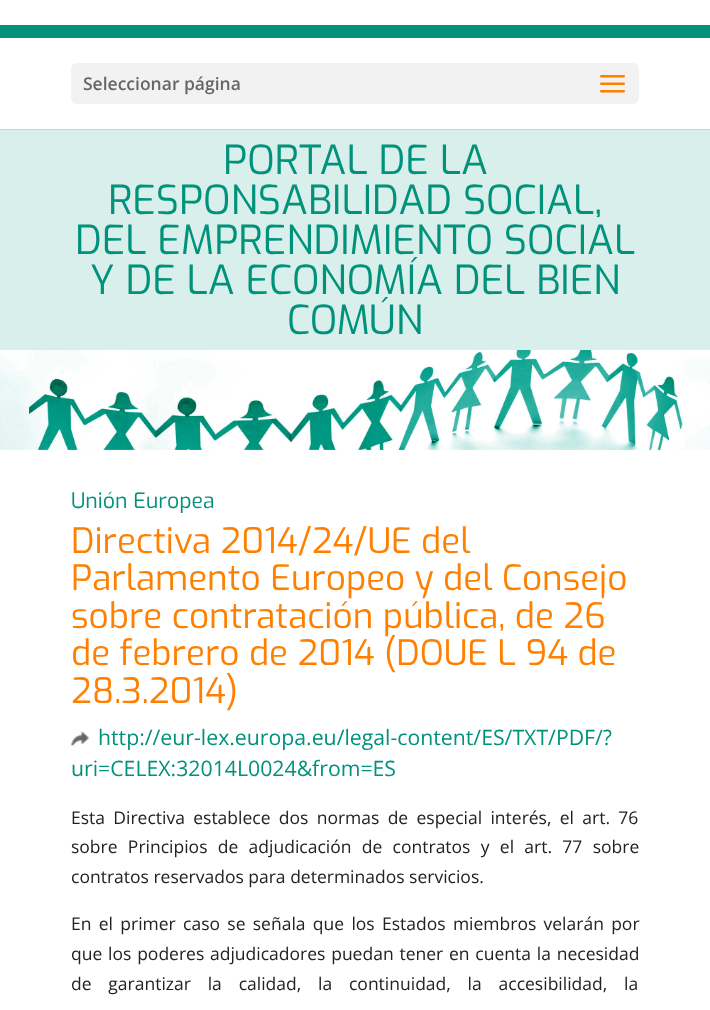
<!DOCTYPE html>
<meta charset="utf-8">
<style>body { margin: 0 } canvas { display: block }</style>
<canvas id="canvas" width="710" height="1010"></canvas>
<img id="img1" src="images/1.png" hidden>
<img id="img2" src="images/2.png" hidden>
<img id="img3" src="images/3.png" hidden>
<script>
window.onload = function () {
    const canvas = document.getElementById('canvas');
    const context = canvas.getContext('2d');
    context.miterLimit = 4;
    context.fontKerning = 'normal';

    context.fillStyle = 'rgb(255, 255, 255)';
    context.fillRect(0, 0, 710, 1010);
    context.fillStyle = 'rgb(195, 215, 212)';
    context.fillRect(0, 129, 710, 1);
    context.fillStyle = 'rgb(0, 146, 123)';
    context.fillRect(0, 25, 710, 13);
    context.fillStyle = 'rgb(242, 242, 242)';
    context.beginPath();
    context.roundRect(71, 63, 568, 41, 6);
    context.fill();
    context.drawImage(document.getElementById('img1'), 600, 75, 25, 18);
    context.fillStyle = 'rgb(217, 239, 235)';
    context.fillRect(0, 130, 710, 220);
    context.drawImage(document.getElementById('img2'), 0, 350, 710, 100);
    context.drawImage(document.getElementById('img3'), 71, 731, 18, 16);
    context.font = '600 17.5px Open Sans';
    context.fillStyle = 'rgb(102, 102, 102)';
    context.fillText('Seleccionar página', 83, 90);
    context.font = '40px Exo';
    context.fillStyle = 'rgb(0, 146, 123)';
    context.fillText('PORTAL DE LA', 223, 174);
    context.fillText('RESPONSABILIDAD SOCIAL,', 108, 214);
    context.fillText('DEL EMPRENDIMIENTO SOCIAL', 75, 254);
    context.fillText('Y DE LA ECONOMÍA DEL BIEN', 90, 294);
    context.fillText('COMÚN', 287, 334);
    context.font = '21.25px Exo';
    context.fillText('Unión Europea', 71, 508);
    context.font = '35px Exo';
    context.fillStyle = 'rgb(255, 127, 0)';
    context.fillText('Directiva 2014/24/UE del', 71, 553);
    context.fillText('Parlamento Europeo y del Consejo', 71, 590);
    context.fillText('sobre contratación pública, de 26', 71, 628);
    context.fillText('de febrero de 2014 (DOUE L 94 de', 71, 665);
    context.fillText('28.3.2014)', 71, 703);
    context.font = '21.25px Open Sans';
    context.fillStyle = 'rgb(0, 146, 123)';
    context.fillText('http://eur-lex.europa.eu/legal-content/ES/TXT/PDF/?', 98, 745);
    context.fillText('uri=CELEX:32014L0024&from=ES', 71, 776);
    context.wordSpacing = '3.75px';
    context.font = '17.5px Open Sans';
    context.fillStyle = 'rgb(34, 34, 34)';
    context.fillText('Esta Directiva establece dos normas de especial interés, el art. 76', 71, 824);
    context.wordSpacing = '5.75px';
    context.fillText('sobre Principios de adjudicación de contratos y el art. 77 sobre', 71, 853);
    context.wordSpacing = '0px';
    context.fillText('contratos reservados para determinados servicios.', 71, 883);
    context.wordSpacing = '2.75px';
    context.fillText('En el primer caso se señala que los Estados miembros velarán por', 71, 930);
    context.wordSpacing = '1.25px';
    context.fillText('que los poderes adjudicadores puedan tener en cuenta la necesidad', 71, 960);
    context.wordSpacing = '12.25px';
    context.fillText('de garantizar la calidad, la continuidad, la accesibilidad, la', 71, 990);
};
</script>
